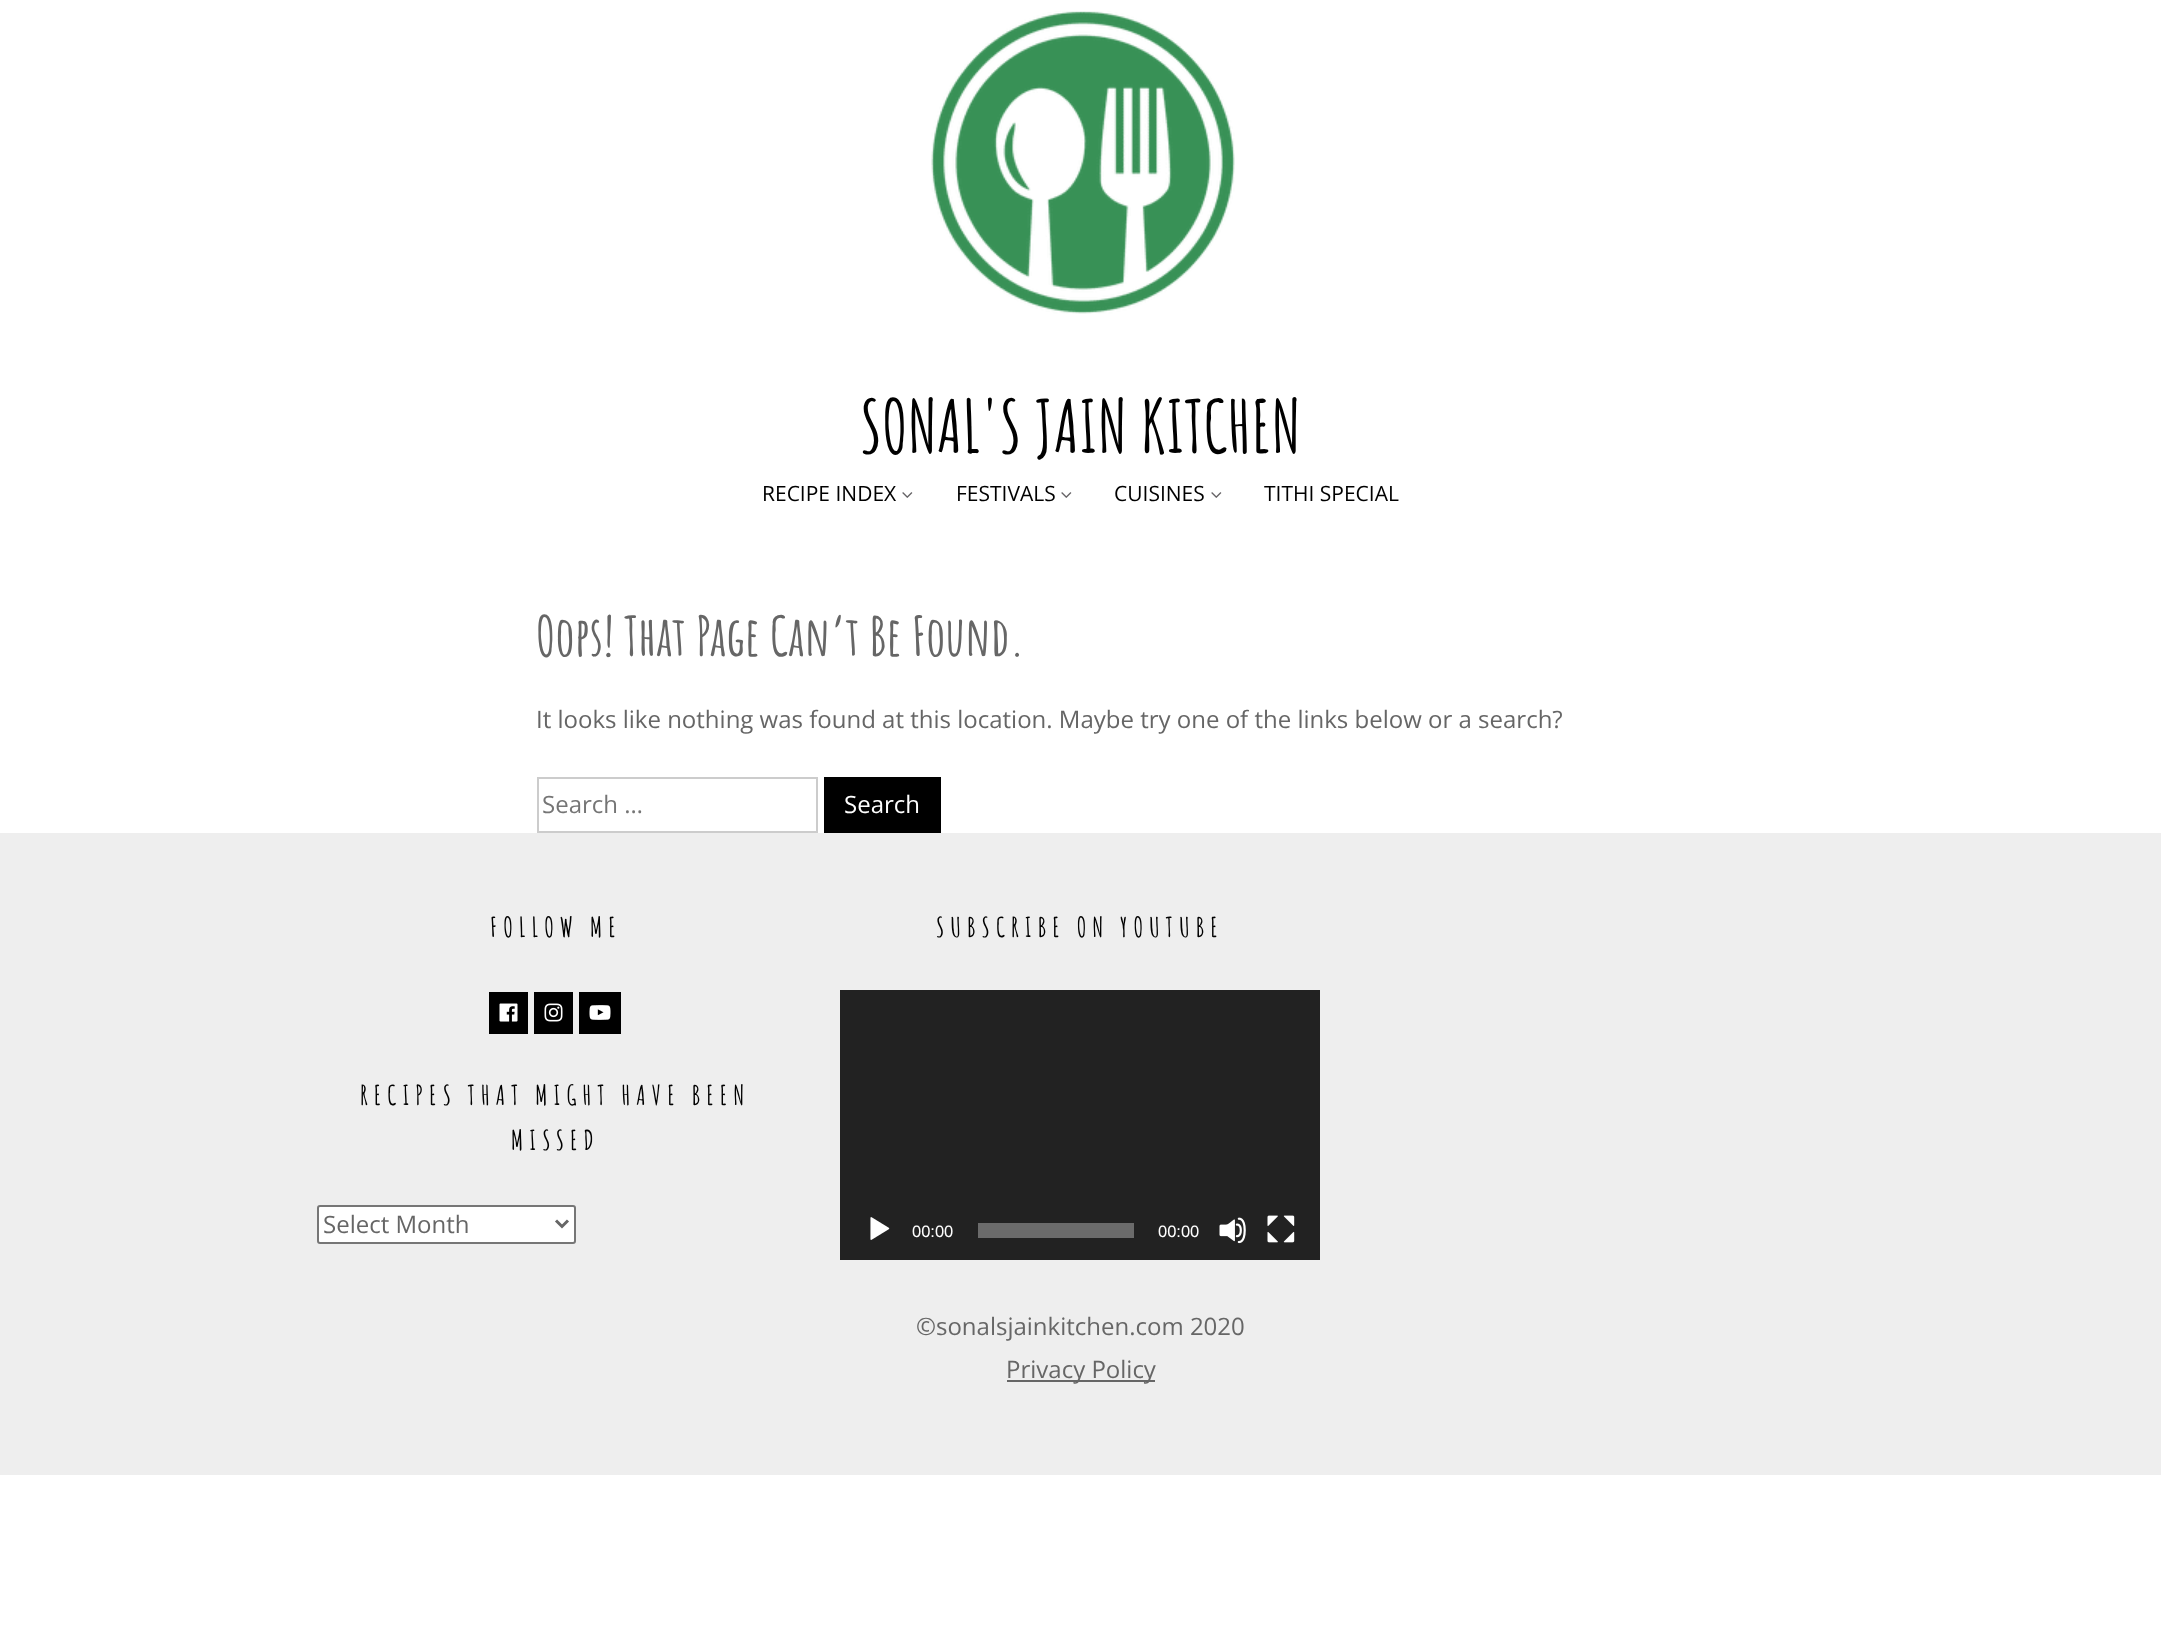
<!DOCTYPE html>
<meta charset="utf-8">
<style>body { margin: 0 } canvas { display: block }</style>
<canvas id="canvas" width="2161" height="1640"></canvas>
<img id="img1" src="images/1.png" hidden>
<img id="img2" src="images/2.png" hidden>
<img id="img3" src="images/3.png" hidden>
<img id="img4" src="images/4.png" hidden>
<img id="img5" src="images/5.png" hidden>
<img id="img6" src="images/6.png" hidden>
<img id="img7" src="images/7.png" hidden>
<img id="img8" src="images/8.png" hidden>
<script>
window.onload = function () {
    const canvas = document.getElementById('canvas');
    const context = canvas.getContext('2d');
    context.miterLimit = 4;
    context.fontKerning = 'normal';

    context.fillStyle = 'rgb(255, 255, 255)';
    context.fillRect(0, 0, 2161, 1640);
    context.drawImage(document.getElementById('img1'), 931, 11, 304, 303);
    context.drawImage(document.getElementById('img2'), 902, 492, 11, 6);
    context.drawImage(document.getElementById('img2'), 1061, 492, 11, 6);
    context.drawImage(document.getElementById('img2'), 1211, 492, 11, 6);
    context.strokeStyle = 'rgb(204, 204, 204)';
    context.lineWidth = 2;
    context.strokeRect(538, 778, 279, 54);
    context.fillStyle = 'rgb(0, 0, 0)';
    context.fillRect(824, 777, 117, 56);
    context.fillStyle = 'rgb(238, 238, 238)';
    context.fillRect(0, 833, 2161, 642);
    context.fillStyle = 'rgb(0, 0, 0)';
    context.fillRect(489, 992, 39, 42);
    context.drawImage(document.getElementById('img3'), 499, 1003, 19, 19);
    context.fillRect(534, 992, 39, 42);
    context.drawImage(document.getElementById('img4'), 544, 1003, 19, 19);
    context.fillRect(579, 992, 42, 42);
    context.drawImage(document.getElementById('img5'), 589, 1005, 22, 15);
    context.fillStyle = 'rgb(255, 255, 255)';
    context.beginPath();
    context.roundRect(318, 1206, 257, 37, 2);
    context.fill();
    context.strokeStyle = 'rgb(118, 118, 118)';
    context.stroke();
    context.beginPath();
    context.moveTo(556, 1220.5);
    context.lineTo(562, 1226.5);
    context.lineTo(568, 1220.5);
    context.strokeStyle = 'rgb(102, 102, 102)';
    context.lineWidth = 3;
    context.stroke();
    context.fillStyle = 'rgb(34, 34, 34)';
    context.fillRect(840, 990, 480, 270);
    context.drawImage(document.getElementById('img6'), 870, 1217, 20, 23);
    context.fillStyle = 'rgb(107, 107, 107)';
    context.fillRect(978, 1223, 156, 15);
    context.drawImage(document.getElementById('img7'), 1219, 1217, 27, 27);
    context.drawImage(document.getElementById('img8'), 1267, 1215, 28, 28);
    context.fillStyle = 'rgb(102, 102, 102)';
    context.fillRect(1007, 1380, 148, 2);
    context.font = 'bold 72px Amatic SC';
    context.fillStyle = 'rgb(0, 0, 0)';
    context.fillText('SONAL\'S JAIN KITCHEN', 860, 453);
    context.font = '21px Open Sans';
    context.fillText('RECIPE INDEX', 762, 501);
    context.fillText('FESTIVALS', 956, 501);
    context.fillText('CUISINES', 1114, 501);
    context.fillText('TITHI SPECIAL', 1264, 501);
    context.font = 'bold 54px Amatic SC';
    context.fillStyle = 'rgb(102, 102, 102)';
    context.fillText('Oops! That Page Can’t Be Found.', 536, 656);
    context.font = '24px Open Sans';
    context.fillText('It looks like nothing was found at this location. Maybe try one of the links below or a search?', 536, 728);
    context.fillStyle = 'rgb(117, 117, 117)';
    context.fillText('Search …', 542, 813);
    context.fillStyle = 'rgb(255, 255, 255)';
    context.fillText('Search', 844, 813);
    context.letterSpacing = '6px';
    context.font = 'bold 27px Amatic SC';
    context.fillStyle = 'rgb(0, 0, 0)';
    context.fillText('FOLLOW ME', 490, 937);
    context.fillText('RECIPES THAT MIGHT HAVE BEEN', 360, 1105);
    context.fillText('MISSED', 511, 1150);
    context.letterSpacing = '0px';
    context.font = '24px Open Sans';
    context.fillStyle = 'rgb(102, 102, 102)';
    context.fillText('Select Month', 323, 1233);
    context.letterSpacing = '6px';
    context.font = 'bold 27px Amatic SC';
    context.fillStyle = 'rgb(0, 0, 0)';
    context.fillText('SUBSCRIBE ON YOUTUBE', 936, 937);
    context.letterSpacing = '0px';
    context.font = '16.5px Liberation Sans';
    context.fillStyle = 'rgb(255, 255, 255)';
    context.fillText('00:00', 912, 1237);
    context.fillText('00:00', 1158, 1237);
    context.font = '24px Open Sans';
    context.fillStyle = 'rgb(102, 102, 102)';
    context.fillText('©sonalsjainkitchen.com 2020', 916, 1335);
    context.fillText('Privacy Policy', 1006, 1378);
};
</script>
